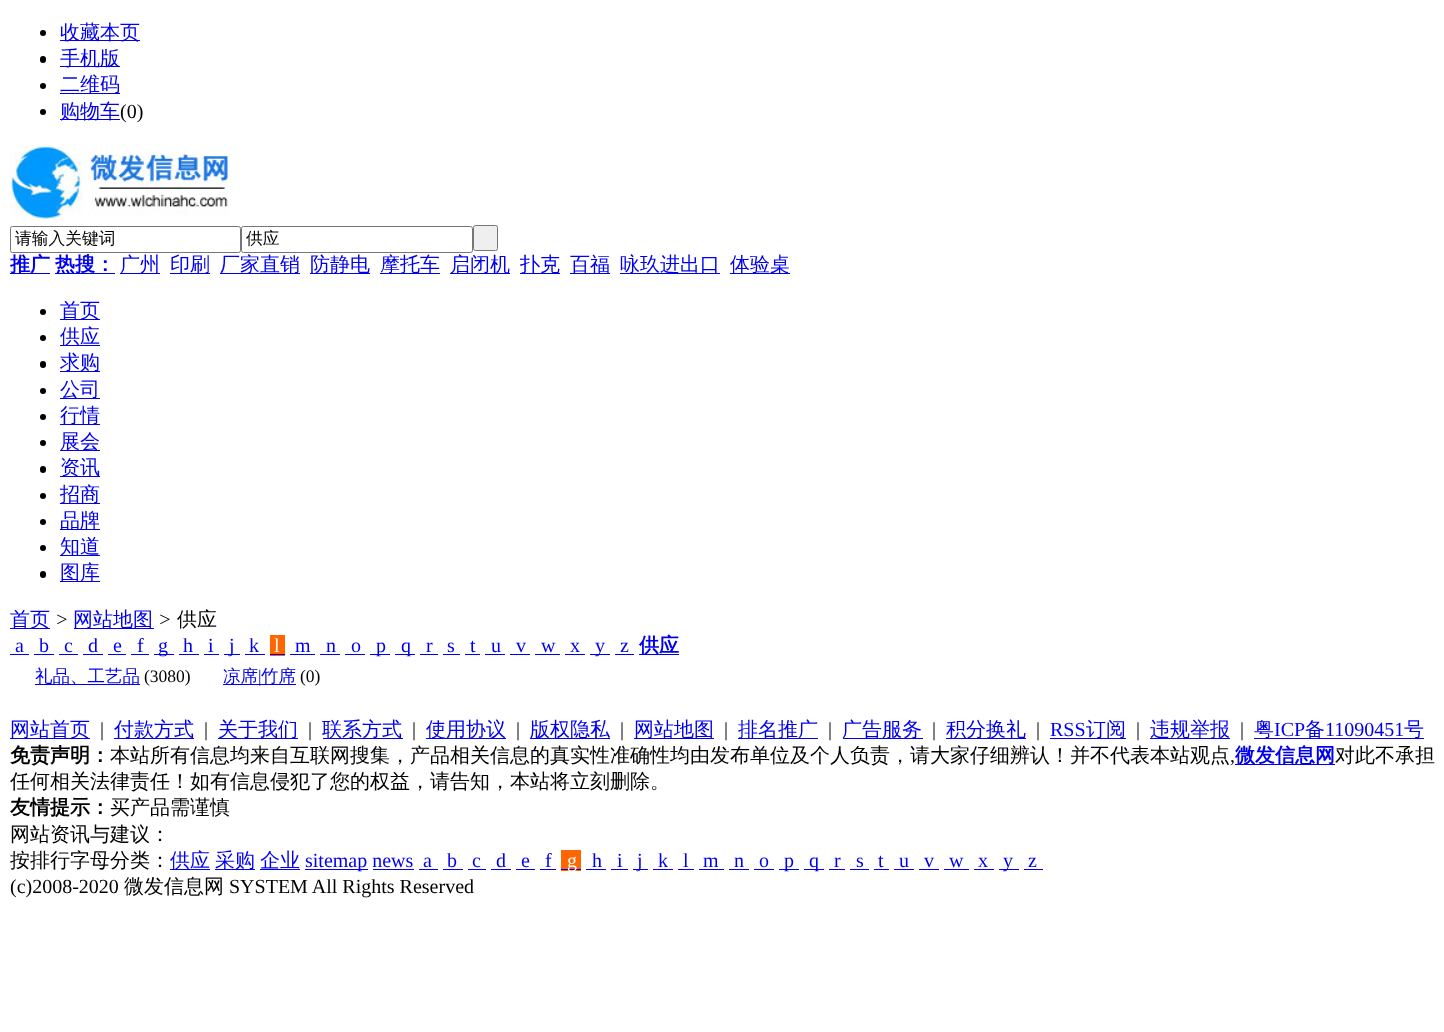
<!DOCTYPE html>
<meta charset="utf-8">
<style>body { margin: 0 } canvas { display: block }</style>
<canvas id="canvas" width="1444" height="1032"></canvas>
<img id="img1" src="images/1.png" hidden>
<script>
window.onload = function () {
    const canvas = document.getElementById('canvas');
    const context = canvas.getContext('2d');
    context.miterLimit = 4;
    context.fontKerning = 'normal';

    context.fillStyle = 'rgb(255, 255, 255)';
    context.fillRect(0, 0, 1444, 1032);
    context.fillStyle = 'rgb(0, 0, 0)';
    context.beginPath();
    context.arc(43, 33, 3, 0, 2 * Math.PI);
    context.fill();
    context.fillStyle = 'rgb(0, 0, 238)';
    context.fillRect(60, 40, 80, 1);
    context.fillStyle = 'rgb(0, 0, 0)';
    context.beginPath();
    context.roundRect(40, 56, 6, 7, 3);
    context.fill();
    context.fillStyle = 'rgb(0, 0, 238)';
    context.fillRect(60, 66, 60, 1);
    context.fillStyle = 'rgb(0, 0, 0)';
    context.beginPath();
    context.arc(43, 86, 3, 0, 2 * Math.PI);
    context.fill();
    context.fillStyle = 'rgb(0, 0, 238)';
    context.fillRect(60, 93, 60, 1);
    context.fillStyle = 'rgb(0, 0, 0)';
    context.beginPath();
    context.arc(43, 112, 3, 0, 2 * Math.PI);
    context.fill();
    context.fillStyle = 'rgb(0, 0, 238)';
    context.fillRect(60, 119, 60, 1);
    context.drawImage(document.getElementById('img1'), 10, 145, 220, 75);
    context.beginPath();
    context.roundRect(10.5, 226.5, 230, 26, 2);
    context.strokeStyle = 'rgb(118, 118, 118)';
    context.stroke();
    context.beginPath();
    context.roundRect(241.5, 226.5, 231, 26, 2);
    context.stroke();
    context.fillStyle = 'rgb(239, 239, 239)';
    context.beginPath();
    context.roundRect(473.5, 225.5, 24, 25, 2);
    context.fill();
    context.stroke();
    context.fillStyle = 'rgb(0, 0, 238)';
    context.fillRect(10, 273, 40, 1);
    context.fillRect(55, 273, 60, 1);
    context.fillRect(120, 273, 40, 1);
    context.fillRect(170, 273, 40, 1);
    context.fillRect(220, 273, 80, 1);
    context.fillRect(310, 273, 60, 1);
    context.fillRect(380, 273, 60, 1);
    context.fillRect(450, 273, 60, 1);
    context.fillRect(520, 273, 40, 1);
    context.fillRect(570, 273, 40, 1);
    context.fillRect(620, 273, 100, 1);
    context.fillRect(730, 273, 60, 1);
    context.fillStyle = 'rgb(0, 0, 0)';
    context.beginPath();
    context.arc(43, 312, 3, 0, 2 * Math.PI);
    context.fill();
    context.fillStyle = 'rgb(0, 0, 238)';
    context.fillRect(60, 319, 40, 1);
    context.fillStyle = 'rgb(0, 0, 0)';
    context.beginPath();
    context.arc(43, 338, 3, 0, 2 * Math.PI);
    context.fill();
    context.fillStyle = 'rgb(0, 0, 238)';
    context.fillRect(60, 345, 40, 1);
    context.fillStyle = 'rgb(0, 0, 0)';
    context.beginPath();
    context.roundRect(40, 361, 6, 7, 3);
    context.fill();
    context.fillStyle = 'rgb(0, 0, 238)';
    context.fillRect(60, 371, 40, 1);
    context.fillStyle = 'rgb(0, 0, 0)';
    context.beginPath();
    context.arc(43, 391, 3, 0, 2 * Math.PI);
    context.fill();
    context.fillStyle = 'rgb(0, 0, 238)';
    context.fillRect(60, 398, 40, 1);
    context.fillStyle = 'rgb(0, 0, 0)';
    context.beginPath();
    context.arc(43, 417, 3, 0, 2 * Math.PI);
    context.fill();
    context.fillStyle = 'rgb(0, 0, 238)';
    context.fillRect(60, 424, 40, 1);
    context.fillStyle = 'rgb(0, 0, 0)';
    context.beginPath();
    context.arc(43, 443, 3, 0, 2 * Math.PI);
    context.fill();
    context.fillStyle = 'rgb(0, 0, 238)';
    context.fillRect(60, 450, 40, 1);
    context.fillStyle = 'rgb(0, 0, 0)';
    context.beginPath();
    context.roundRect(40, 466, 6, 7, 3);
    context.fill();
    context.fillStyle = 'rgb(0, 0, 238)';
    context.fillRect(60, 476, 40, 1);
    context.fillStyle = 'rgb(0, 0, 0)';
    context.beginPath();
    context.arc(43, 496, 3, 0, 2 * Math.PI);
    context.fill();
    context.fillStyle = 'rgb(0, 0, 238)';
    context.fillRect(60, 503, 40, 1);
    context.fillStyle = 'rgb(0, 0, 0)';
    context.beginPath();
    context.arc(43, 522, 3, 0, 2 * Math.PI);
    context.fill();
    context.fillStyle = 'rgb(0, 0, 238)';
    context.fillRect(60, 529, 40, 1);
    context.fillStyle = 'rgb(0, 0, 0)';
    context.beginPath();
    context.arc(43, 548, 3, 0, 2 * Math.PI);
    context.fill();
    context.fillStyle = 'rgb(0, 0, 238)';
    context.fillRect(60, 555, 40, 1);
    context.fillStyle = 'rgb(0, 0, 0)';
    context.beginPath();
    context.roundRect(40, 571, 6, 7, 3);
    context.fill();
    context.fillStyle = 'rgb(0, 0, 238)';
    context.fillRect(60, 581, 40, 1);
    context.fillRect(10, 628, 40, 1);
    context.fillRect(74, 628, 80, 1);
    context.fillRect(10, 654, 19, 1);
    context.fillRect(34, 654, 20, 1);
    context.fillRect(59, 654, 19, 1);
    context.fillRect(83, 654, 20, 1);
    context.fillRect(108, 654, 18, 1);
    context.fillRect(131, 654, 18, 1);
    context.fillRect(154, 654, 20, 1);
    context.fillRect(179, 654, 20, 1);
    context.fillRect(204, 654, 15, 1);
    context.fillRect(224, 654, 16, 1);
    context.fillRect(245, 654, 20, 1);
    context.fillStyle = 'rgb(255, 102, 0)';
    context.fillRect(270, 635, 15, 21);
    context.fillStyle = 'rgb(0, 0, 238)';
    context.fillRect(270, 654, 15, 1);
    context.fillRect(290, 654, 25, 1);
    context.fillRect(320, 654, 20, 1);
    context.fillRect(345, 654, 20, 1);
    context.fillRect(370, 654, 20, 1);
    context.fillRect(395, 654, 20, 1);
    context.fillRect(420, 654, 18, 1);
    context.fillRect(443, 654, 17, 1);
    context.fillRect(465, 654, 15, 1);
    context.fillRect(485, 654, 20, 1);
    context.fillRect(510, 654, 20, 1);
    context.fillRect(535, 654, 25, 1);
    context.fillRect(565, 654, 20, 1);
    context.fillRect(590, 654, 20, 1);
    context.fillRect(615, 654, 19, 1);
    context.fillRect(639, 654, 40, 1);
    context.fillRect(35, 684, 105, 1);
    context.fillRect(223, 684, 73, 1);
    context.fillRect(10, 738, 80, 1);
    context.fillRect(114, 738, 80, 1);
    context.fillRect(218, 738, 80, 1);
    context.fillRect(323, 738, 80, 1);
    context.fillRect(426, 738, 80, 1);
    context.fillRect(530, 738, 80, 1);
    context.fillRect(634, 738, 80, 1);
    context.fillRect(738, 738, 80, 1);
    context.fillRect(843, 738, 80, 1);
    context.fillRect(946, 738, 80, 1);
    context.fillRect(1050, 738, 76, 1);
    context.fillRect(1150, 738, 80, 1);
    context.fillRect(1254, 738, 170, 1);
    context.fillRect(1235, 764, 100, 1);
    context.fillRect(170, 869, 40, 1);
    context.fillRect(215, 869, 40, 1);
    context.fillRect(260, 869, 40, 1);
    context.fillRect(305, 869, 63, 1);
    context.fillRect(419, 869, 19, 1);
    context.fillRect(443, 869, 20, 1);
    context.fillRect(468, 869, 18, 1);
    context.fillRect(491, 869, 20, 1);
    context.fillRect(516, 869, 19, 1);
    context.fillRect(540, 869, 16, 1);
    context.fillStyle = 'rgb(255, 102, 0)';
    context.fillRect(561, 850, 20, 21);
    context.fillStyle = 'rgb(0, 0, 238)';
    context.fillRect(561, 869, 20, 1);
    context.fillRect(586, 869, 20, 1);
    context.fillRect(611, 869, 17, 1);
    context.fillRect(633, 869, 15, 1);
    context.fillRect(653, 869, 20, 1);
    context.fillRect(678, 869, 16, 1);
    context.fillRect(699, 869, 25, 1);
    context.fillRect(729, 869, 20, 1);
    context.fillRect(754, 869, 20, 1);
    context.fillRect(779, 869, 20, 1);
    context.fillRect(804, 869, 20, 1);
    context.fillRect(829, 869, 16, 1);
    context.fillRect(850, 869, 19, 1);
    context.fillRect(874, 869, 15, 1);
    context.fillRect(894, 869, 20, 1);
    context.fillRect(919, 869, 20, 1);
    context.fillRect(944, 869, 25, 1);
    context.fillRect(974, 869, 20, 1);
    context.fillRect(999, 869, 20, 1);
    context.fillRect(1024, 869, 19, 1);
    context.fillRect(373, 869, 41, 1);
    context.font = '500 20px WenQuanYi Zen Hei';
    context.fillText('收藏本页', 60, 39);
    context.fillText('手机版', 60, 65);
    context.fillText('二维码', 60, 91);
    context.fillText('购物车', 60, 118);
    context.font = '20px Liberation Serif';
    context.fillStyle = 'rgb(0, 0, 0)';
    context.fillText('(0)', 120, 118);
    context.font = '500 16.75px WenQuanYi Zen Hei';
    context.fillText('请输入关键词', 15, 244);
    context.fillText('供应', 246, 244);
    context.font = 'bold 20px WenQuanYi Zen Hei';
    context.fillStyle = 'rgb(0, 0, 238)';
    context.fillText('推广', 10, 271);
    context.fillText('热搜：', 55, 271);
    context.font = '500 20px WenQuanYi Zen Hei';
    context.fillText('广州', 120, 271);
    context.fillText('印刷', 170, 271);
    context.fillText('厂家直销', 220, 271);
    context.fillText('防静电', 310, 271);
    context.fillText('摩托车', 380, 271);
    context.fillText('启闭机', 450, 271);
    context.fillText('扑克', 520, 271);
    context.fillText('百福', 570, 271);
    context.fillText('咏玖进出口', 620, 271);
    context.fillText('体验桌', 730, 271);
    context.fillText('首页', 60, 317);
    context.fillText('供应', 60, 343);
    context.fillText('求购', 60, 369);
    context.fillText('公司', 60, 396);
    context.fillText('行情', 60, 422);
    context.fillText('展会', 60, 448);
    context.fillText('资讯', 60, 474);
    context.fillText('招商', 60, 501);
    context.fillText('品牌', 60, 527);
    context.fillText('知道', 60, 553);
    context.fillText('图库', 60, 579);
    context.fillText('首页', 10, 626);
    context.font = 'italic 20px Liberation Serif';
    context.fillStyle = 'rgb(0, 0, 0)';
    context.fillText('>', 55, 626);
    context.font = '500 20px WenQuanYi Zen Hei';
    context.fillStyle = 'rgb(0, 0, 238)';
    context.fillText('网站地图', 73, 626);
    context.font = 'italic 20px Liberation Serif';
    context.fillStyle = 'rgb(0, 0, 0)';
    context.fillText('>', 158, 626);
    context.font = '500 20px WenQuanYi Zen Hei';
    context.fillText('供应', 177, 626);
    context.font = '20px Liberation Serif';
    context.fillStyle = 'rgb(0, 0, 238)';
    context.fillText('a', 15, 652);
    context.fillText('b', 39, 652);
    context.fillText('c', 64, 652);
    context.fillText('d', 88, 652);
    context.fillText('e', 113, 652);
    context.fillText('f', 137, 652);
    context.fillText('g', 158, 652);
    context.fillText('h', 183, 652);
    context.fillText('i', 208, 652);
    context.fillText('j', 229, 652);
    context.fillText('k', 249, 652);
    context.fillStyle = 'rgb(255, 255, 255)';
    context.fillText('l', 274, 652);
    context.fillStyle = 'rgb(0, 0, 238)';
    context.fillText('m', 295, 652);
    context.fillText('n', 326, 652);
    context.fillText('o', 351, 652);
    context.fillText('p', 376, 652);
    context.fillText('q', 401, 652);
    context.fillText('r', 426, 652);
    context.fillText('s', 447, 652);
    context.fillText('t', 470, 652);
    context.fillText('u', 491, 652);
    context.fillText('v', 516, 652);
    context.fillText('w', 541, 652);
    context.fillText('x', 570, 652);
    context.fillText('y', 595, 652);
    context.fillText('z', 620, 652);
    context.font = 'bold 20px WenQuanYi Zen Hei';
    context.fillText('供应', 639, 652);
    context.font = '500 17.5px WenQuanYi Zen Hei';
    context.fillText('礼品、工艺品', 35, 682);
    context.font = '17.5px Liberation Serif';
    context.fillStyle = 'rgb(0, 0, 0)';
    context.fillText('(3080)', 144, 682);
    context.font = '500 17.5px WenQuanYi Zen Hei';
    context.fillStyle = 'rgb(0, 0, 238)';
    context.fillText('凉席', 223, 682);
    context.font = '17.5px Liberation Serif';
    context.fillText('|', 258, 682);
    context.font = '500 17.5px WenQuanYi Zen Hei';
    context.fillText('竹席', 261, 682);
    context.font = '17.5px Liberation Serif';
    context.fillStyle = 'rgb(0, 0, 0)';
    context.fillText('(0)', 300, 682);
    context.font = '500 20px WenQuanYi Zen Hei';
    context.fillStyle = 'rgb(0, 0, 238)';
    context.fillText('网站首页', 10, 736);
    context.font = '20px Liberation Serif';
    context.fillStyle = 'rgb(0, 0, 0)';
    context.fillText('|', 100, 736);
    context.font = '500 20px WenQuanYi Zen Hei';
    context.fillStyle = 'rgb(0, 0, 238)';
    context.fillText('付款方式', 114, 736);
    context.font = '20px Liberation Serif';
    context.fillStyle = 'rgb(0, 0, 0)';
    context.fillText('|', 204, 736);
    context.font = '500 20px WenQuanYi Zen Hei';
    context.fillStyle = 'rgb(0, 0, 238)';
    context.fillText('关于我们', 218, 736);
    context.font = '20px Liberation Serif';
    context.fillStyle = 'rgb(0, 0, 0)';
    context.fillText('|', 308, 736);
    context.font = '500 20px WenQuanYi Zen Hei';
    context.fillStyle = 'rgb(0, 0, 238)';
    context.fillText('联系方式', 322, 736);
    context.font = '20px Liberation Serif';
    context.fillStyle = 'rgb(0, 0, 0)';
    context.fillText('|', 412, 736);
    context.font = '500 20px WenQuanYi Zen Hei';
    context.fillStyle = 'rgb(0, 0, 238)';
    context.fillText('使用协议', 426, 736);
    context.font = '20px Liberation Serif';
    context.fillStyle = 'rgb(0, 0, 0)';
    context.fillText('|', 516, 736);
    context.font = '500 20px WenQuanYi Zen Hei';
    context.fillStyle = 'rgb(0, 0, 238)';
    context.fillText('版权隐私', 530, 736);
    context.font = '20px Liberation Serif';
    context.fillStyle = 'rgb(0, 0, 0)';
    context.fillText('|', 620, 736);
    context.font = '500 20px WenQuanYi Zen Hei';
    context.fillStyle = 'rgb(0, 0, 238)';
    context.fillText('网站地图', 634, 736);
    context.font = '20px Liberation Serif';
    context.fillStyle = 'rgb(0, 0, 0)';
    context.fillText('|', 724, 736);
    context.font = '500 20px WenQuanYi Zen Hei';
    context.fillStyle = 'rgb(0, 0, 238)';
    context.fillText('排名推广', 738, 736);
    context.font = '20px Liberation Serif';
    context.fillStyle = 'rgb(0, 0, 0)';
    context.fillText('|', 828, 736);
    context.font = '500 20px WenQuanYi Zen Hei';
    context.fillStyle = 'rgb(0, 0, 238)';
    context.fillText('广告服务', 842, 736);
    context.font = '20px Liberation Serif';
    context.fillStyle = 'rgb(0, 0, 0)';
    context.fillText('|', 932, 736);
    context.font = '500 20px WenQuanYi Zen Hei';
    context.fillStyle = 'rgb(0, 0, 238)';
    context.fillText('积分换礼', 946, 736);
    context.font = '20px Liberation Serif';
    context.fillStyle = 'rgb(0, 0, 0)';
    context.fillText('|', 1036, 736);
    context.fillStyle = 'rgb(0, 0, 238)';
    context.fillText('RSS', 1050, 736);
    context.font = '500 20px WenQuanYi Zen Hei';
    context.fillText('订阅', 1086, 736);
    context.font = '20px Liberation Serif';
    context.fillStyle = 'rgb(0, 0, 0)';
    context.fillText('|', 1136, 736);
    context.font = '500 20px WenQuanYi Zen Hei';
    context.fillStyle = 'rgb(0, 0, 238)';
    context.fillText('违规举报', 1150, 736);
    context.font = '20px Liberation Serif';
    context.fillStyle = 'rgb(0, 0, 0)';
    context.fillText('|', 1240, 736);
    context.font = '500 20px WenQuanYi Zen Hei';
    context.fillStyle = 'rgb(0, 0, 238)';
    context.fillText('粤', 1254, 736);
    context.font = '20px Liberation Serif';
    context.fillText('ICP', 1274, 736);
    context.font = '500 20px WenQuanYi Zen Hei';
    context.fillText('备', 1305, 736);
    context.font = '20px Liberation Serif';
    context.fillText('11090451', 1325, 736);
    context.font = '500 20px WenQuanYi Zen Hei';
    context.fillText('号', 1404, 736);
    context.font = 'bold 20px WenQuanYi Zen Hei';
    context.fillStyle = 'rgb(0, 0, 0)';
    context.fillText('免责声明：', 10, 762);
    context.font = '500 20px WenQuanYi Zen Hei';
    context.fillText('本站所有信息均来自互联网搜集，产品相关信息的真实性准确性均由发布单位及个人负责，请大家仔细辨认！并不代表本站观点', 110, 762);
    context.font = '20px Liberation Serif';
    context.fillText(',', 1230, 762);
    context.font = 'bold 20px WenQuanYi Zen Hei';
    context.fillStyle = 'rgb(0, 0, 238)';
    context.fillText('微发信息网', 1235, 762);
    context.font = '500 20px WenQuanYi Zen Hei';
    context.fillStyle = 'rgb(0, 0, 0)';
    context.fillText('对此不承担', 1335, 762);
    context.fillText('任何相关法律责任！如有信息侵犯了您的权益，请告知，本站将立刻删除。', 10, 788);
    context.font = 'bold 20px WenQuanYi Zen Hei';
    context.fillText('友情提示：', 10, 814);
    context.font = '500 20px WenQuanYi Zen Hei';
    context.fillText('买产品需谨慎', 110, 814);
    context.fillText('网站资讯与建议：', 10, 841);
    context.fillText('按排行字母分类：', 10, 867);
    context.fillStyle = 'rgb(0, 0, 238)';
    context.fillText('供应', 170, 867);
    context.fillText('采购', 215, 867);
    context.fillText('企业', 260, 867);
    context.font = '20px Liberation Serif';
    context.fillText('sitemap news', 305, 867);
    context.fillText('a', 423, 867);
    context.fillText('b', 447, 867);
    context.fillText('c', 472, 867);
    context.fillText('d', 496, 867);
    context.fillText('e', 521, 867);
    context.fillText('f', 545, 867);
    context.fillStyle = 'rgb(255, 255, 255)';
    context.fillText('g', 567, 867);
    context.fillStyle = 'rgb(0, 0, 238)';
    context.fillText('h', 592, 867);
    context.fillText('i', 617, 867);
    context.fillText('j', 637, 867);
    context.fillText('k', 658, 867);
    context.fillText('l', 683, 867);
    context.fillText('m', 703, 867);
    context.fillText('n', 734, 867);
    context.fillText('o', 759, 867);
    context.fillText('p', 784, 867);
    context.fillText('q', 809, 867);
    context.fillText('r', 834, 867);
    context.fillText('s', 856, 867);
    context.fillText('t', 878, 867);
    context.fillText('u', 899, 867);
    context.fillText('v', 924, 867);
    context.fillText('w', 949, 867);
    context.fillText('x', 978, 867);
    context.fillText('y', 1003, 867);
    context.fillText('z', 1028, 867);
    context.fillStyle = 'rgb(0, 0, 0)';
    context.fillText('(c)2008-2020', 10, 893);
    context.font = '500 20px WenQuanYi Zen Hei';
    context.fillText('微发信息网', 124, 893);
    context.font = '20px Liberation Serif';
    context.fillText('SYSTEM All Rights Reserved', 229, 893);
};
</script>
